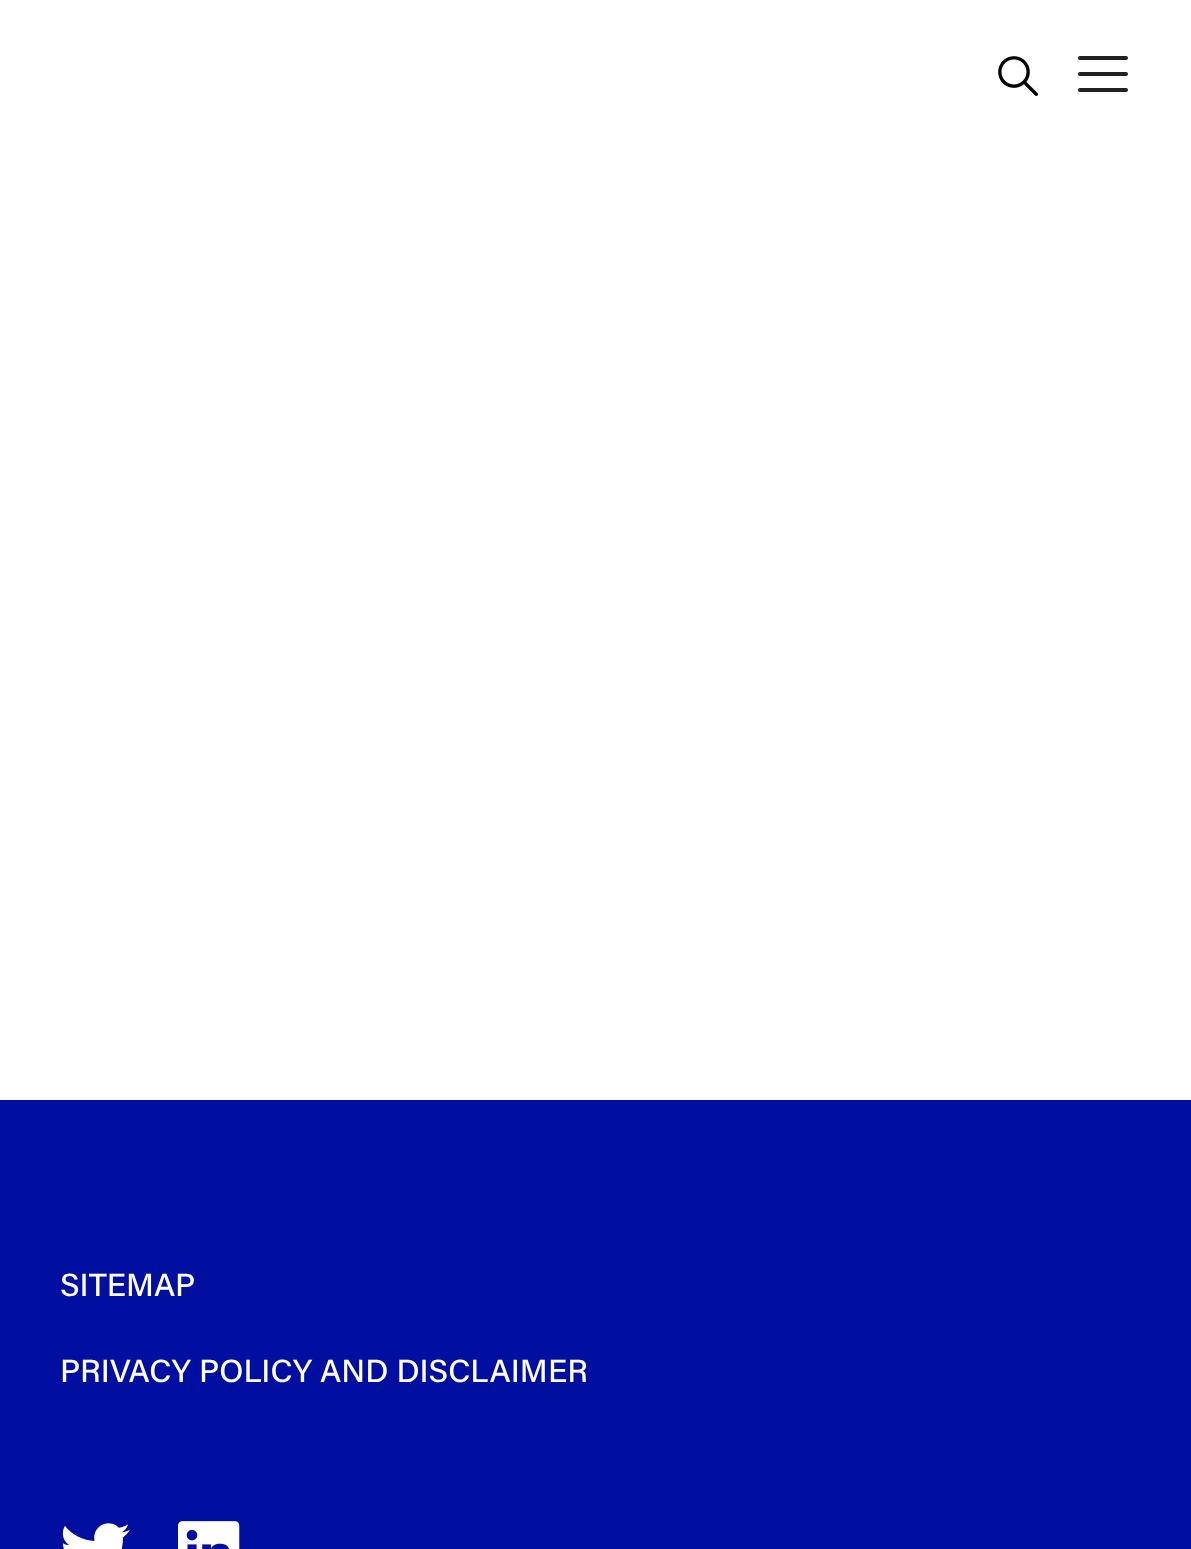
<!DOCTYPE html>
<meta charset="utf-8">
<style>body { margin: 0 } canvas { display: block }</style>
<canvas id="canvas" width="1191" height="1549"></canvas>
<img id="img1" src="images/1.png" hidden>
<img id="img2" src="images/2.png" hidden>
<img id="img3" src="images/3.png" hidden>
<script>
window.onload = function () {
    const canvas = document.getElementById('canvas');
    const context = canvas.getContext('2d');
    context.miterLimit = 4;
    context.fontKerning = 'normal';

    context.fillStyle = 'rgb(255, 255, 255)';
    context.fillRect(0, 0, 1191, 1549);
    context.drawImage(document.getElementById('img1'), 998, 56, 40, 40);
    context.fillStyle = 'rgb(34, 34, 34)';
    context.beginPath();
    context.roundRect(1078, 72, 50, 4, 2);
    context.fill();
    context.beginPath();
    context.roundRect(1078, 56, 50, 4, 2);
    context.fill();
    context.beginPath();
    context.roundRect(1078, 88, 50, 4, 2);
    context.fill();
    context.fillStyle = 'rgb(0, 15, 159)';
    context.fillRect(0, 1100, 1191, 449);
    context.drawImage(document.getElementById('img2'), 62, 1523, 68, 26);
    context.drawImage(document.getElementById('img3'), 178, 1521, 62, 28);
    context.font = '500 32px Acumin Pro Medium';
    context.fillStyle = 'rgb(255, 255, 255)';
    context.fillText('SITEMAP', 60, 1296);
    context.fillText('PRIVACY POLICY AND DISCLAIMER', 60, 1382);
};
</script>
